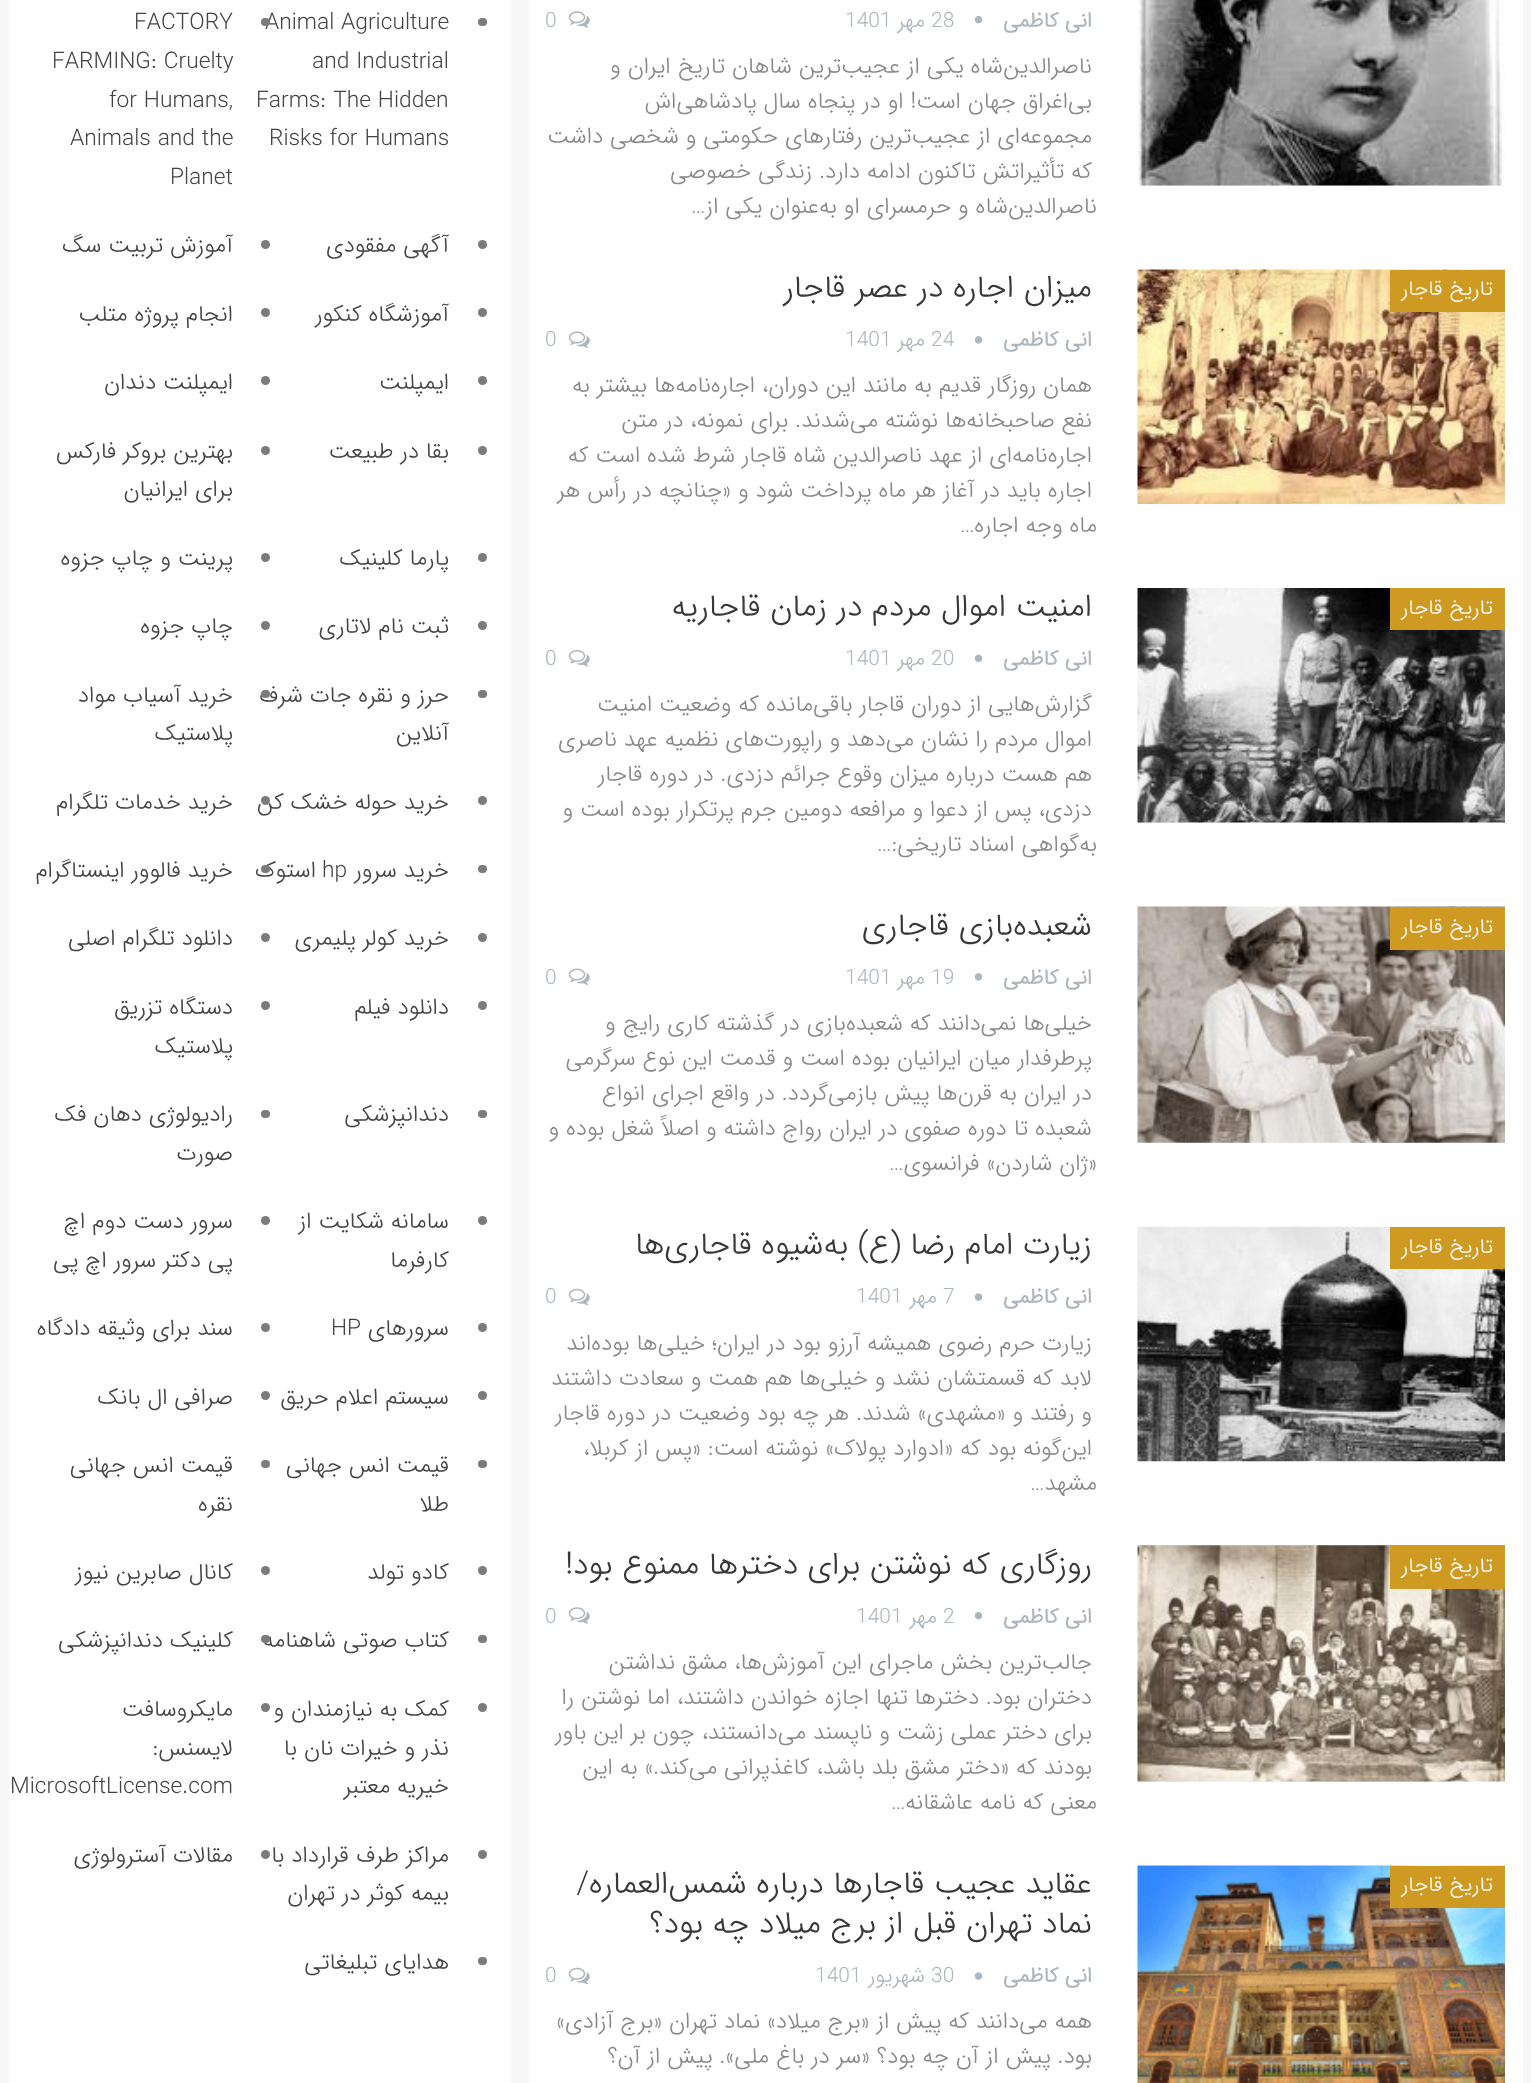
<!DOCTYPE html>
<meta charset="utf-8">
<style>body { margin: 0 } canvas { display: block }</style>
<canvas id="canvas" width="1531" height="2083"></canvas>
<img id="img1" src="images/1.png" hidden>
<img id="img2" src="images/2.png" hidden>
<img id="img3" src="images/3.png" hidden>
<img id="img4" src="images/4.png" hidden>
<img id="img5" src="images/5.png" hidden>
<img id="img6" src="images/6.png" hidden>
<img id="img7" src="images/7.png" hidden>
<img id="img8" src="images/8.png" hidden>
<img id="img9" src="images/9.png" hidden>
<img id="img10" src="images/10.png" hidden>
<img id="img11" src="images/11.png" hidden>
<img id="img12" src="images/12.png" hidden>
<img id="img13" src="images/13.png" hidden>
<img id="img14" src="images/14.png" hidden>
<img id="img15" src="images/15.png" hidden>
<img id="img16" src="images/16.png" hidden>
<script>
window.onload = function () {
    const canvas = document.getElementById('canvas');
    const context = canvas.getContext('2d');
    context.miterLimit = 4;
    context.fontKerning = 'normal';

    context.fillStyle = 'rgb(247, 247, 247)';
    context.fillRect(0, 0, 1531, 2083);
    context.fillStyle = 'rgb(255, 255, 255)';
    context.fillRect(529, 0, 994, 2083);
    context.fillStyle = 'rgb(245, 245, 245)';
    context.fillRect(1138, 185, 367, 1);
    context.drawImage(document.getElementById('img1'), 1137, 0, 368, 186);
    context.drawImage(document.getElementById('img2'), 975, 15, 8, 9);
    context.drawImage(document.getElementById('img3'), 568, 11, 22, 17);
    context.drawImage(document.getElementById('img4'), 1137, 269, 368, 235);
    context.fillStyle = 'rgb(206, 154, 33)';
    context.fillRect(1390, 270, 115, 42);
    context.drawImage(document.getElementById('img5'), 975, 336, 8, 8);
    context.drawImage(document.getElementById('img6'), 568, 331, 22, 17);
    context.fillStyle = 'rgb(245, 245, 245)';
    context.fillRect(1138, 822, 367, 1);
    context.drawImage(document.getElementById('img7'), 1137, 588, 368, 235);
    context.fillStyle = 'rgb(206, 154, 33)';
    context.fillRect(1390, 588, 115, 42);
    context.drawImage(document.getElementById('img8'), 975, 654, 8, 9);
    context.drawImage(document.getElementById('img9'), 568, 650, 22, 17);
    context.drawImage(document.getElementById('img10'), 1137, 906, 368, 237);
    context.fillRect(1390, 907, 115, 43);
    context.drawImage(document.getElementById('img5'), 975, 973, 8, 8);
    context.drawImage(document.getElementById('img6'), 568, 968, 22, 17);
    context.drawImage(document.getElementById('img11'), 1137, 1226, 368, 236);
    context.fillRect(1390, 1227, 115, 42);
    context.drawImage(document.getElementById('img12'), 975, 1293, 8, 8);
    context.drawImage(document.getElementById('img13'), 568, 1288, 22, 18);
    context.fillStyle = 'rgb(245, 245, 245)';
    context.fillRect(1138, 1545, 367, 237);
    context.drawImage(document.getElementById('img14'), 1137, 1545, 368, 237);
    context.fillStyle = 'rgb(206, 154, 33)';
    context.fillRect(1390, 1545, 115, 44);
    context.drawImage(document.getElementById('img2'), 975, 1611, 8, 9);
    context.drawImage(document.getElementById('img15'), 568, 1607, 22, 17);
    context.drawImage(document.getElementById('img16'), 1137, 1865, 368, 218);
    context.fillRect(1390, 1866, 115, 42);
    context.drawImage(document.getElementById('img12'), 975, 1972, 8, 8);
    context.drawImage(document.getElementById('img13'), 568, 1967, 22, 18);
    context.fillStyle = 'rgb(255, 255, 255)';
    context.fillRect(9, 0, 502, 2083);
    context.fillStyle = 'rgb(123, 123, 123)';
    context.beginPath();
    context.roundRect(478, 18, 9, 8, 4);
    context.fill();
    context.beginPath();
    context.arc(482.5, 244.5, 4.5, 0, 2 * Math.PI);
    context.fill();
    context.beginPath();
    context.arc(265.5, 244.5, 4.5, 0, 2 * Math.PI);
    context.fill();
    context.beginPath();
    context.arc(482.5, 312.5, 4.5, 0, 2 * Math.PI);
    context.fill();
    context.beginPath();
    context.arc(265.5, 312.5, 4.5, 0, 2 * Math.PI);
    context.fill();
    context.beginPath();
    context.arc(482.5, 380.5, 4.5, 0, 2 * Math.PI);
    context.fill();
    context.beginPath();
    context.arc(265.5, 380.5, 4.5, 0, 2 * Math.PI);
    context.fill();
    context.beginPath();
    context.arc(482.5, 450.5, 4.5, 0, 2 * Math.PI);
    context.fill();
    context.beginPath();
    context.arc(265.5, 450.5, 4.5, 0, 2 * Math.PI);
    context.fill();
    context.beginPath();
    context.arc(482.5, 557.5, 4.5, 0, 2 * Math.PI);
    context.fill();
    context.beginPath();
    context.arc(265.5, 557.5, 4.5, 0, 2 * Math.PI);
    context.fill();
    context.beginPath();
    context.arc(482.5, 625.5, 4.5, 0, 2 * Math.PI);
    context.fill();
    context.beginPath();
    context.arc(265.5, 625.5, 4.5, 0, 2 * Math.PI);
    context.fill();
    context.beginPath();
    context.roundRect(478, 690, 9, 8, 4);
    context.fill();
    context.beginPath();
    context.arc(482.5, 800.5, 4.5, 0, 2 * Math.PI);
    context.fill();
    context.beginPath();
    context.roundRect(478, 865, 9, 8, 4);
    context.fill();
    context.beginPath();
    context.arc(482.5, 937.5, 4.5, 0, 2 * Math.PI);
    context.fill();
    context.beginPath();
    context.arc(265.5, 937.5, 4.5, 0, 2 * Math.PI);
    context.fill();
    context.beginPath();
    context.arc(482.5, 1005.5, 4.5, 0, 2 * Math.PI);
    context.fill();
    context.beginPath();
    context.arc(265.5, 1005.5, 4.5, 0, 2 * Math.PI);
    context.fill();
    context.beginPath();
    context.roundRect(478, 1110, 9, 8, 4);
    context.fill();
    context.beginPath();
    context.roundRect(261, 1110, 9, 8, 4);
    context.fill();
    context.beginPath();
    context.arc(482.5, 1220.5, 4.5, 0, 2 * Math.PI);
    context.fill();
    context.beginPath();
    context.arc(265.5, 1220.5, 4.5, 0, 2 * Math.PI);
    context.fill();
    context.beginPath();
    context.arc(482.5, 1327.5, 4.5, 0, 2 * Math.PI);
    context.fill();
    context.beginPath();
    context.arc(265.5, 1327.5, 4.5, 0, 2 * Math.PI);
    context.fill();
    context.beginPath();
    context.arc(482.5, 1395.5, 4.5, 0, 2 * Math.PI);
    context.fill();
    context.beginPath();
    context.arc(265.5, 1395.5, 4.5, 0, 2 * Math.PI);
    context.fill();
    context.beginPath();
    context.roundRect(478, 1460, 9, 8, 4);
    context.fill();
    context.beginPath();
    context.roundRect(261, 1460, 9, 8, 4);
    context.fill();
    context.beginPath();
    context.arc(482.5, 1570.5, 4.5, 0, 2 * Math.PI);
    context.fill();
    context.beginPath();
    context.arc(265.5, 1570.5, 4.5, 0, 2 * Math.PI);
    context.fill();
    context.beginPath();
    context.roundRect(478, 1635, 9, 8, 4);
    context.fill();
    context.beginPath();
    context.arc(482.5, 1707.5, 4.5, 0, 2 * Math.PI);
    context.fill();
    context.beginPath();
    context.arc(265.5, 1707.5, 4.5, 0, 2 * Math.PI);
    context.fill();
    context.beginPath();
    context.arc(482.5, 1854.5, 4.5, 0, 2 * Math.PI);
    context.fill();
    context.beginPath();
    context.arc(265.5, 1854.5, 4.5, 0, 2 * Math.PI);
    context.fill();
    context.beginPath();
    context.roundRect(478, 1957, 9, 8, 4);
    context.fill();
    context.direction = 'rtl';
    context.font = 'bold 21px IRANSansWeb';
    context.fillStyle = 'rgb(173, 181, 189)';
    context.fillText('انی کاظمی', 1092, 27);
    context.direction = 'ltr';
    context.font = '300 21px IRANSansWeb';
    context.fillText('28', 931, 27);
    context.direction = 'rtl';
    context.fillText('مهر', 925, 27);
    context.direction = 'ltr';
    context.fillText('1401', 845, 27);
    context.fillText('0', 545, 27);
    context.direction = 'rtl';
    context.font = '300 22.75px IRANSansWeb';
    context.fillStyle = 'rgb(136, 136, 136)';
    context.fillText('ناصرالدین‌شاه یکی از عجیب‌ترین شاهان تاریخ ایران و', 1092, 73);
    context.fillText('بی‌اغراق جهان است! او در پنجاه سال پادشاهی‌اش', 1092, 108);
    context.fillText('مجموعه‌ای از عجیب‌ترین رفتارهای حکومتی و شخصی داشت', 1092, 143);
    context.fillText('که تأثیراتش تاکنون ادامه دارد. زندگی خصوصی', 1092, 178);
    context.fillText('ناصرالدین‌شاه و حرمسرای او به‌عنوان یکی از', 1097, 213);
    context.direction = 'ltr';
    context.fillText('…', 691, 213);
    context.direction = 'rtl';
    context.font = '300 21px IRANSansWeb';
    context.fillStyle = 'rgb(255, 255, 255)';
    context.fillText('تاریخ قاجار', 1493, 295);
    context.font = '300 31.5px IRANSansWeb';
    context.fillStyle = 'rgb(56, 56, 56)';
    context.fillText('میزان اجاره در عصر قاجار', 1092, 297);
    context.font = 'bold 21px IRANSansWeb';
    context.fillStyle = 'rgb(173, 181, 189)';
    context.fillText('انی کاظمی', 1092, 346);
    context.direction = 'ltr';
    context.font = '300 21px IRANSansWeb';
    context.fillText('24', 931, 346);
    context.direction = 'rtl';
    context.fillText('مهر', 925, 346);
    context.direction = 'ltr';
    context.fillText('1401', 845, 346);
    context.fillText('0', 545, 346);
    context.direction = 'rtl';
    context.font = '300 22.75px IRANSansWeb';
    context.fillStyle = 'rgb(136, 136, 136)';
    context.fillText('همان روزگار قدیم به مانند این دوران، اجاره‌نامه‌ها بیشتر به', 1092, 392);
    context.fillText('نفع صاحبخانه‌ها نوشته می‌شدند. برای نمونه، در متن', 1092, 427);
    context.fillText('اجاره‌نامه‌ای از عهد ناصرالدین شاه قاجار شرط شده است که', 1092, 462);
    context.fillText('اجاره باید در آغاز هر ماه پرداخت شود و «چنانچه در رأس هر', 1092, 497);
    context.fillText('ماه وجه اجاره', 1097, 532);
    context.direction = 'ltr';
    context.fillText('…', 960, 532);
    context.direction = 'rtl';
    context.font = '300 21px IRANSansWeb';
    context.fillStyle = 'rgb(255, 255, 255)';
    context.fillText('تاریخ قاجار', 1493, 614);
    context.font = '300 31.5px IRANSansWeb';
    context.fillStyle = 'rgb(56, 56, 56)';
    context.fillText('امنیت اموال مردم در زمان قاجاریه', 1092, 616);
    context.font = 'bold 21px IRANSansWeb';
    context.fillStyle = 'rgb(173, 181, 189)';
    context.fillText('انی کاظمی', 1092, 665);
    context.direction = 'ltr';
    context.font = '300 21px IRANSansWeb';
    context.fillText('20', 931, 665);
    context.direction = 'rtl';
    context.fillText('مهر', 925, 665);
    context.direction = 'ltr';
    context.fillText('1401', 845, 665);
    context.fillText('0', 545, 665);
    context.direction = 'rtl';
    context.font = '300 22.75px IRANSansWeb';
    context.fillStyle = 'rgb(136, 136, 136)';
    context.fillText('گزارش‌هایی از دوران قاجار باقی‌مانده که وضعیت امنیت', 1092, 711);
    context.fillText('اموال مردم را نشان می‌دهد و راپورت‌های نظمیه عهد ناصری', 1092, 746);
    context.fillText('هم هست درباره میزان وقوع جرائم دزدی. در دوره قاجار', 1092, 781);
    context.fillText('دزدی، پس از دعوا و مرافعه دومین جرم پرتکرار بوده است و', 1092, 816);
    context.fillText('به‌گواهی اسناد تاریخی:', 1097, 851);
    context.direction = 'ltr';
    context.fillText('…', 877, 851);
    context.direction = 'rtl';
    context.font = '300 21px IRANSansWeb';
    context.fillStyle = 'rgb(255, 255, 255)';
    context.fillText('تاریخ قاجار', 1493, 933);
    context.font = '300 31.5px IRANSansWeb';
    context.fillStyle = 'rgb(56, 56, 56)';
    context.fillText('شعبده‌بازی قاجاری', 1092, 935);
    context.font = 'bold 21px IRANSansWeb';
    context.fillStyle = 'rgb(173, 181, 189)';
    context.fillText('انی کاظمی', 1092, 984);
    context.direction = 'ltr';
    context.font = '300 21px IRANSansWeb';
    context.fillText('19', 931, 984);
    context.direction = 'rtl';
    context.fillText('مهر', 925, 984);
    context.direction = 'ltr';
    context.fillText('1401', 845, 984);
    context.fillText('0', 545, 984);
    context.direction = 'rtl';
    context.font = '300 22.75px IRANSansWeb';
    context.fillStyle = 'rgb(136, 136, 136)';
    context.fillText('خیلی‌ها نمی‌دانند که شعبده‌بازی در گذشته کاری رایج و', 1092, 1030);
    context.fillText('پرطرفدار میان ایرانیان بوده است و قدمت این نوع سرگرمی', 1092, 1065);
    context.fillText('در ایران به قرن‌ها پیش بازمی‌گردد. در واقع اجرای انواع', 1092, 1100);
    context.fillText('شعبده تا دوره صفوی در ایران رواج داشته و اصلاً شغل بوده و', 1092, 1135);
    context.fillText('«ژان شاردن» فرانسوی', 1097, 1170);
    context.direction = 'ltr';
    context.fillText('…', 889, 1170);
    context.direction = 'rtl';
    context.font = '300 21px IRANSansWeb';
    context.fillStyle = 'rgb(255, 255, 255)';
    context.fillText('تاریخ قاجار', 1493, 1253);
    context.font = '300 31.5px IRANSansWeb';
    context.fillStyle = 'rgb(56, 56, 56)';
    context.fillText('زیارت امام رضا (ع) به‌شیوه قاجاری‌ها', 1092, 1254);
    context.font = 'bold 21px IRANSansWeb';
    context.fillStyle = 'rgb(173, 181, 189)';
    context.fillText('انی کاظمی', 1092, 1303);
    context.direction = 'ltr';
    context.font = '300 21px IRANSansWeb';
    context.fillText('7', 943, 1303);
    context.direction = 'rtl';
    context.fillText('مهر', 937, 1303);
    context.direction = 'ltr';
    context.fillText('1401', 856, 1303);
    context.fillText('0', 545, 1303);
    context.direction = 'rtl';
    context.font = '300 22.75px IRANSansWeb';
    context.fillStyle = 'rgb(136, 136, 136)';
    context.fillText('زیارت حرم رضوی همیشه آرزو بود در ایران؛ خیلی‌ها بوده‌اند', 1092, 1350);
    context.fillText('لابد که قسمتشان نشد و خیلی‌ها هم همت و سعادت داشتند', 1092, 1385);
    context.fillText('و رفتند و «مشهدی» شدند.', 1092, 1420);
    context.fillText('هر چه بود وضعیت در دوره قاجار', 849, 1420);
    context.fillText('این‌گونه بود که «ادوارد پولاک» نوشته است: «پس از کربلا،', 1092, 1455);
    context.fillText('مشهد', 1097, 1490);
    context.direction = 'ltr';
    context.fillText('…', 1030, 1490);
    context.direction = 'rtl';
    context.font = '300 21px IRANSansWeb';
    context.fillStyle = 'rgb(255, 255, 255)';
    context.fillText('تاریخ قاجار', 1493, 1572);
    context.font = '300 31.5px IRANSansWeb';
    context.fillStyle = 'rgb(56, 56, 56)';
    context.fillText('روزگاری که نوشتن برای دختر‌ها ممنوع بود!', 1092, 1574);
    context.font = 'bold 21px IRANSansWeb';
    context.fillStyle = 'rgb(173, 181, 189)';
    context.fillText('انی کاظمی', 1092, 1623);
    context.direction = 'ltr';
    context.font = '300 21px IRANSansWeb';
    context.fillText('2', 943, 1623);
    context.direction = 'rtl';
    context.fillText('مهر', 937, 1623);
    context.direction = 'ltr';
    context.fillText('1401', 856, 1623);
    context.fillText('0', 545, 1623);
    context.direction = 'rtl';
    context.font = '300 22.75px IRANSansWeb';
    context.fillStyle = 'rgb(136, 136, 136)';
    context.fillText('جالب‌ترین بخش ماجرای این آموزش‌ها، مشق نداشتن', 1092, 1669);
    context.fillText('دختران بود. دختر‌ها تنها اجازه خواندن داشتند، اما نوشتن را', 1092, 1704);
    context.fillText('برای دختر عملی زشت و ناپسند می‌دانستند، چون بر این باور', 1092, 1739);
    context.fillText('بودند که «دختر مشق بلد باشد، کاغذپرانی می‌کند.» به این', 1092, 1774);
    context.fillText('معنی که نامه عاشقانه', 1097, 1809);
    context.direction = 'ltr';
    context.fillText('…', 891, 1809);
    context.direction = 'rtl';
    context.font = '300 21px IRANSansWeb';
    context.fillStyle = 'rgb(255, 255, 255)';
    context.fillText('تاریخ قاجار', 1493, 1891);
    context.font = '300 31.5px IRANSansWeb';
    context.fillStyle = 'rgb(56, 56, 56)';
    context.fillText('عقاید عجیب قاجارها درباره شمس‌العماره/', 1092, 1893);
    context.fillText('نماد تهران قبل از برج میلاد چه بود؟', 1092, 1933);
    context.font = 'bold 21px IRANSansWeb';
    context.fillStyle = 'rgb(173, 181, 189)';
    context.fillText('انی کاظمی', 1092, 1982);
    context.direction = 'ltr';
    context.font = '300 21px IRANSansWeb';
    context.fillText('30', 931, 1982);
    context.direction = 'rtl';
    context.fillText('شهریور', 925, 1982);
    context.direction = 'ltr';
    context.fillText('1401', 815, 1982);
    context.fillText('0', 545, 1982);
    context.direction = 'rtl';
    context.font = '300 22.75px IRANSansWeb';
    context.fillStyle = 'rgb(136, 136, 136)';
    context.fillText('همه می‌دانند که پیش از «برج میلاد» نماد تهران «برج آزادی»', 1092, 2028);
    context.fillText('بود. پیش از آن چه بود؟ «سر در باغ ملی». پیش از آن؟', 1092, 2063);
    context.direction = 'ltr';
    context.fillStyle = 'rgb(68, 68, 68)';
    context.fillText('Animal Agriculture', 265, 29);
    context.fillText('and Industrial', 312, 68);
    context.fillText('Farms: The Hidden', 256, 107);
    context.fillText('Risks for Humans', 269, 145);
    context.fillStyle = 'rgb(123, 123, 123)';
    context.beginPath();
    context.roundRect(261, 18, 9, 8, 4);
    context.fill();
    context.fillStyle = 'rgb(68, 68, 68)';
    context.fillText('FACTORY', 134, 29);
    context.fillText('FARMING: Cruelty', 52, 68);
    context.fillText('for Humans,', 109, 107);
    context.fillText('Animals and the', 70, 145);
    context.fillText('Planet', 170, 184);
    context.direction = 'rtl';
    context.fillText('آگهی مفقودی', 449, 252);
    context.fillText('آموزش تربیت سگ', 233, 252);
    context.fillText('آموزشگاه کنکور', 449, 321);
    context.fillText('انجام پروژه متلب', 233, 321);
    context.fillText('ایمپلنت', 449, 389);
    context.fillText('ایمپلنت دندان', 233, 389);
    context.fillText('بقا در طبیعت', 449, 458);
    context.fillText('بهترین بروکر فارکس', 233, 458);
    context.fillText('برای ایرانیان', 233, 496);
    context.fillText('پارما کلینیک', 449, 565);
    context.fillText('پرینت و چاپ جزوه', 233, 565);
    context.fillText('ثبت نام لاتاری', 449, 633);
    context.fillText('چاپ جزوه', 233, 633);
    context.fillText('حرز و نقره جات شرف', 449, 702);
    context.fillText('آنلاین', 449, 740);
    context.fillStyle = 'rgb(123, 123, 123)';
    context.beginPath();
    context.roundRect(261, 690, 9, 8, 4);
    context.fill();
    context.fillStyle = 'rgb(68, 68, 68)';
    context.fillText('خرید آسیاب مواد', 233, 702);
    context.fillText('پلاستیک', 233, 740);
    context.fillText('خرید حوله خشک کن', 449, 809);
    context.fillStyle = 'rgb(123, 123, 123)';
    context.beginPath();
    context.arc(265.5, 800.5, 4.5, 0, 2 * Math.PI);
    context.fill();
    context.fillStyle = 'rgb(68, 68, 68)';
    context.fillText('خرید خدمات تلگرام', 233, 809);
    context.fillText('خرید سرور', 449, 877);
    context.direction = 'ltr';
    context.fillText('hp', 322, 877);
    context.direction = 'rtl';
    context.fillText('استوک', 316, 877);
    context.fillStyle = 'rgb(123, 123, 123)';
    context.beginPath();
    context.roundRect(261, 865, 9, 8, 4);
    context.fill();
    context.fillStyle = 'rgb(68, 68, 68)';
    context.fillText('خرید فالوور اینستاگرام', 233, 877);
    context.fillText('خرید کولر پلیمری', 449, 945);
    context.fillText('دانلود تلگرام اصلی', 233, 945);
    context.fillText('دانلود فیلم', 449, 1014);
    context.fillText('دستگاه تزریق', 233, 1014);
    context.fillText('پلاستیک', 233, 1053);
    context.fillText('دندانپزشکی', 449, 1121);
    context.fillText('رادیولوژی دهان فک', 233, 1121);
    context.fillText('صورت', 233, 1160);
    context.fillText('سامانه شکایت از', 449, 1228);
    context.fillText('کارفرما', 449, 1267);
    context.fillText('سرور دست دوم اچ', 233, 1228);
    context.fillText('پی دکتر سرور اچ پی', 233, 1267);
    context.fillText('سرورهای', 449, 1335);
    context.direction = 'ltr';
    context.fillText('HP', 331, 1335);
    context.direction = 'rtl';
    context.fillText('سند برای وثیقه دادگاه', 233, 1335);
    context.fillText('سیستم اعلام حریق', 449, 1404);
    context.fillText('صرافی ال بانک', 233, 1404);
    context.fillText('قیمت انس جهانی', 449, 1472);
    context.fillText('طلا', 449, 1511);
    context.fillText('قیمت انس جهانی', 233, 1472);
    context.fillText('نقره', 233, 1511);
    context.fillText('کادو تولد', 449, 1579);
    context.fillText('کانال صابرین نیوز', 233, 1579);
    context.fillText('کتاب صوتی شاهنامه', 449, 1647);
    context.fillStyle = 'rgb(123, 123, 123)';
    context.beginPath();
    context.roundRect(261, 1635, 9, 8, 4);
    context.fill();
    context.fillStyle = 'rgb(68, 68, 68)';
    context.fillText('کلینیک دندانپزشکی', 233, 1647);
    context.fillText('کمک به نیازمندان و', 449, 1716);
    context.fillText('نذر و خیرات نان با', 449, 1755);
    context.fillText('خیریه معتبر', 449, 1793);
    context.fillText('مایکروسافت', 233, 1716);
    context.fillText('لایسنس:', 233, 1755);
    context.direction = 'ltr';
    context.fillText('MicrosoftLicense.com', 10, 1793);
    context.direction = 'rtl';
    context.fillText('مراکز طرف قرارداد با', 449, 1862);
    context.fillText('بیمه کوثر در تهران', 449, 1900);
    context.fillText('مقالات آسترولوژی', 233, 1862);
    context.fillText('هدایای تبلیغاتی', 449, 1969);
};
</script>
